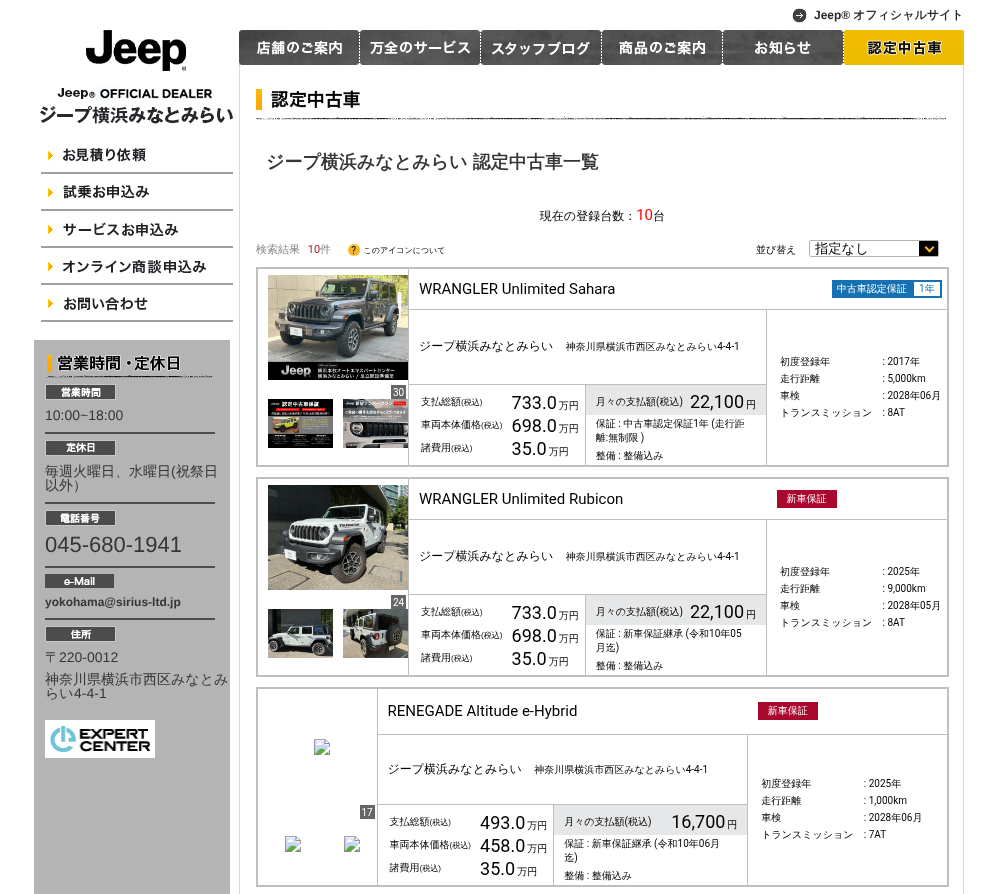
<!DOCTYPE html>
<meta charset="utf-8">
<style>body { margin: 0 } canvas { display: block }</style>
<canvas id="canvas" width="998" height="894"></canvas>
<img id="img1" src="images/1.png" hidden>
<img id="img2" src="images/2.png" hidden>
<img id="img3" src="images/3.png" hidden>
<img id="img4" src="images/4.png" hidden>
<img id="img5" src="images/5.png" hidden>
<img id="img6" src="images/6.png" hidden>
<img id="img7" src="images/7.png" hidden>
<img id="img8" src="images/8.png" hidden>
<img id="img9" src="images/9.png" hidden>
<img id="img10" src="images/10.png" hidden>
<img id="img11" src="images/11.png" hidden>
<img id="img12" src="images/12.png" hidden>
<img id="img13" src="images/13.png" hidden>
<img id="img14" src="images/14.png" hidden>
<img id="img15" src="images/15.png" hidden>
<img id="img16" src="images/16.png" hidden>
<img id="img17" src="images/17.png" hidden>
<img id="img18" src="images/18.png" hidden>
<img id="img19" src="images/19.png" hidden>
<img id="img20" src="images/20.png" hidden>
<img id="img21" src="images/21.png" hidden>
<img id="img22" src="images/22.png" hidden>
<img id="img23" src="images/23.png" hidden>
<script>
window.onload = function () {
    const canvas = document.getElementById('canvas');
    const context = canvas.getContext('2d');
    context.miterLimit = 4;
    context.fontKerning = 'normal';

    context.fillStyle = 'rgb(255, 255, 255)';
    context.fillRect(0, 0, 998, 894);
    context.drawImage(document.getElementById('img1'), 792, 8, 15, 15);
    context.drawImage(document.getElementById('img2'), 239, 30, 121, 35);
    context.drawImage(document.getElementById('img3'), 360, 30, 121, 35);
    context.drawImage(document.getElementById('img4'), 481, 30, 121, 35);
    context.drawImage(document.getElementById('img5'), 602, 30, 121, 35);
    context.drawImage(document.getElementById('img6'), 723, 30, 121, 35);
    context.drawImage(document.getElementById('img7'), 844, 30, 120, 35);
    context.fillStyle = 'rgb(216, 216, 218)';
    context.fillRect(963, 65, 1, 829);
    context.fillRect(239, 65, 1, 829);
    context.drawImage(document.getElementById('img8'), 256, 89, 690, 31);
    context.drawImage(document.getElementById('img9'), 256, 209, 693, 678);
    context.drawImage(document.getElementById('img10'), 86, 30, 100, 41);
    context.drawImage(document.getElementById('img11'), 40, 86, 193, 38);
    context.fillStyle = 'rgb(160, 160, 160)';
    context.fillRect(41, 172, 192, 2);
    context.drawImage(document.getElementById('img12'), 46, 146, 100, 17);
    context.fillRect(41, 209, 192, 2);
    context.drawImage(document.getElementById('img13'), 46, 183, 103, 16);
    context.fillRect(41, 246, 192, 2);
    context.drawImage(document.getElementById('img14'), 46, 222, 132, 16);
    context.fillRect(41, 283, 192, 2);
    context.drawImage(document.getElementById('img15'), 46, 260, 160, 15);
    context.fillRect(41, 320, 192, 2);
    context.drawImage(document.getElementById('img16'), 46, 297, 102, 14);
    context.fillStyle = 'rgb(180, 180, 180)';
    context.fillRect(34, 340, 196, 554);
    context.drawImage(document.getElementById('img17'), 45, 355, 167, 23);
    context.drawImage(document.getElementById('img18'), 45, 384, 71, 16);
    context.fillStyle = 'rgb(76, 77, 78)';
    context.fillRect(45, 432, 170, 2);
    context.drawImage(document.getElementById('img19'), 45, 440, 71, 16);
    context.fillRect(45, 502, 170, 2);
    context.drawImage(document.getElementById('img20'), 45, 510, 71, 16);
    context.fillRect(45, 566, 170, 2);
    context.drawImage(document.getElementById('img21'), 45, 574, 69, 14);
    context.fillRect(45, 618, 170, 2);
    context.drawImage(document.getElementById('img22'), 45, 626, 71, 16);
    context.fillStyle = 'rgb(255, 255, 255)';
    context.fillRect(45, 720, 110, 38);
    context.drawImage(document.getElementById('img23'), 50, 726, 100, 26);
    context.font = 'bold 12px Liberation Sans';
    context.fillStyle = 'rgb(42, 42, 38)';
    context.fillText('Jeep®', 814, 19);
    context.font = 'bold 12px WenQuanYi Zen Hei';
    context.fillText('オフィシャルサイト', 853, 19);
    context.font = 'bold 18px WenQuanYi Zen Hei';
    context.fillStyle = 'rgb(54, 54, 54)';
    context.fillText('ジープ横浜みなとみらい 認定中古車一覧', 266, 168);
    context.font = '14px Liberation Sans';
    context.fillText('10:00~18:00', 45, 420);
    context.font = '500 14px WenQuanYi Zen Hei';
    context.fillText('毎週火曜日、水曜日', 45, 476);
    context.font = '14px Liberation Sans';
    context.fillText('(', 171, 476);
    context.font = '500 14px WenQuanYi Zen Hei';
    context.fillText('祝祭日', 176, 476);
    context.fillText('以外）', 45, 490);
    context.font = '22px Liberation Sans';
    context.fillText('045-680-1941', 45, 552);
    context.font = 'bold 12px Liberation Sans';
    context.fillText('yokohama@sirius-ltd.jp', 45, 606);
    context.font = '500 14px WenQuanYi Zen Hei';
    context.fillText('〒', 45, 662);
    context.font = '14px Liberation Sans';
    context.fillText('220-0012', 59, 662);
    context.font = '500 14px WenQuanYi Zen Hei';
    context.fillText('神奈川県横浜市西区みなとみ', 45, 684);
    context.fillText('らい', 45, 698);
    context.font = '14px Liberation Sans';
    context.fillText('4-4-1', 74, 698);
};
</script>
